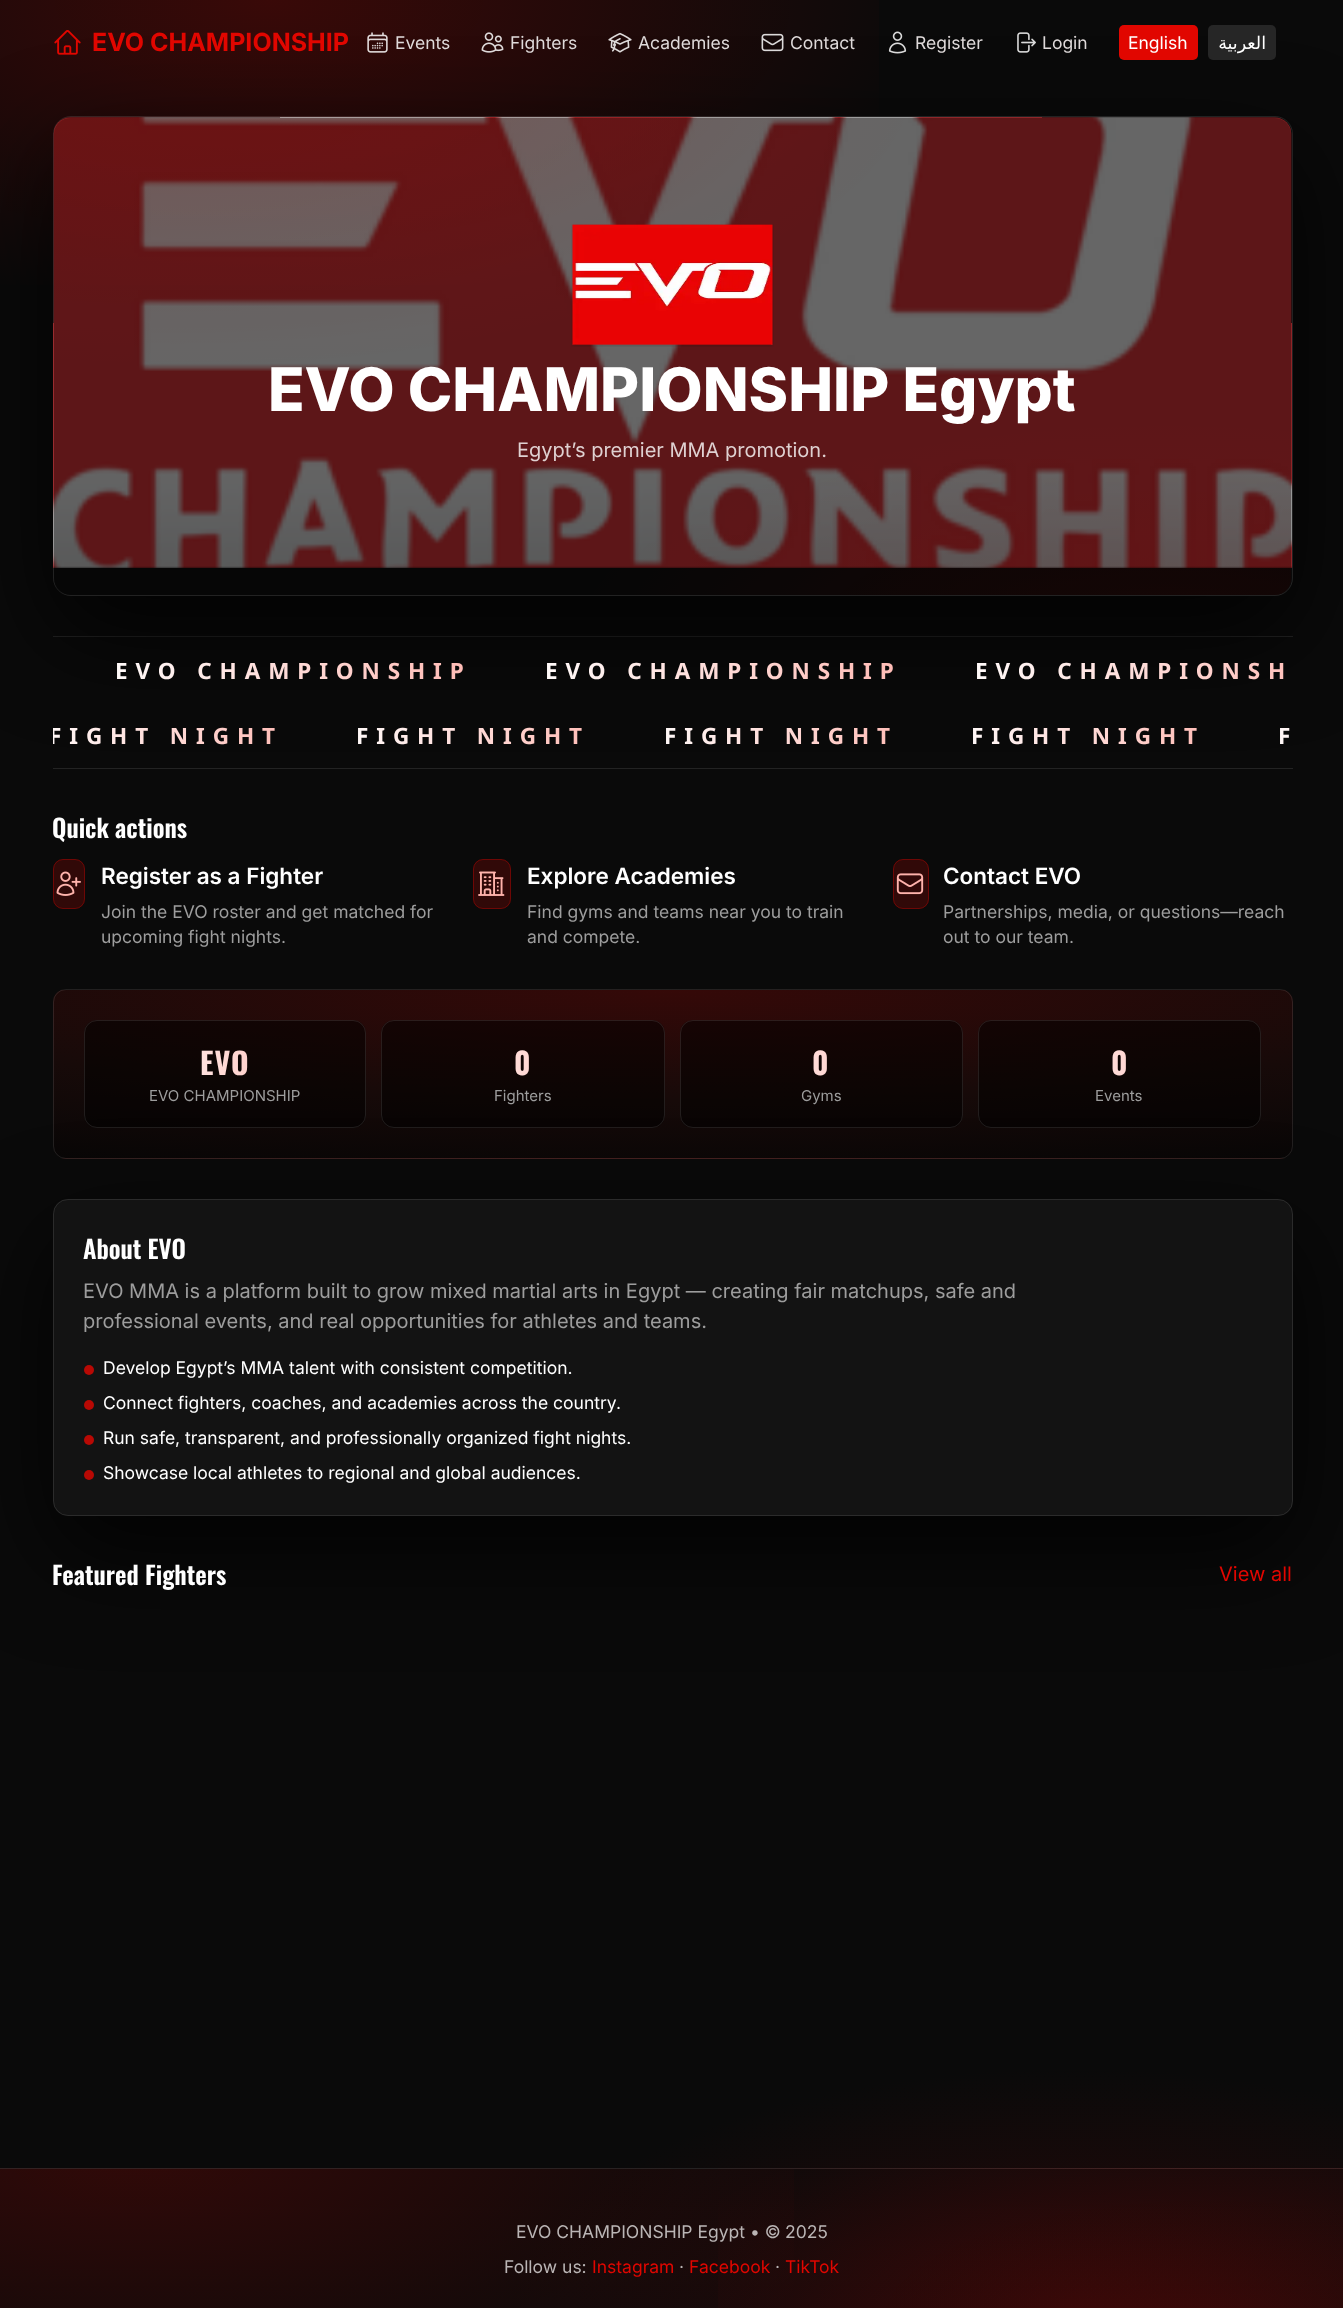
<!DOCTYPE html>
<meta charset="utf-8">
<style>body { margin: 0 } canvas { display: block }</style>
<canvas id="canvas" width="1343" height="2308"></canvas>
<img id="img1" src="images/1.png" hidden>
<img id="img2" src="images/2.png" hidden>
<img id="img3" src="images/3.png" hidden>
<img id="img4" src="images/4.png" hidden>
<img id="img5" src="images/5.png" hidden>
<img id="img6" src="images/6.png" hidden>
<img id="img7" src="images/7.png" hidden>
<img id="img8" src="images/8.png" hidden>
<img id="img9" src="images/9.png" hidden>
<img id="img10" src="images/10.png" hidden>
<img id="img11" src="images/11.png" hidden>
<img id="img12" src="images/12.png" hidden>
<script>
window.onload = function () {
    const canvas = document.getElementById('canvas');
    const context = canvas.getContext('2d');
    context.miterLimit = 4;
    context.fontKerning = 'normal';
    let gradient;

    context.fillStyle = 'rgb(255, 255, 255)';
    context.fillRect(0, 0, 1343, 2308);
    gradient = context.createRadialGradient(1075, 5414.6, 0, 1075, 5414.6, 938);
    gradient.addColorStop(0, 'rgb(40, 9, 9)');
    gradient.addColorStop(0.6, 'rgb(10, 10, 10)');
    context.fillStyle = gradient;
    context.beginPath();
    context.rect(0, 0, 1343, 2308);
    context.save();
    context.clip();
    context.scale(1, 400 / 938);
    context.fillRect(0, 0, 1343, 5413);
    context.restore();
    gradient = context.createRadialGradient(269, 0, 0, 269, 0, 1125);
    gradient.addColorStop(0, 'rgba(225, 6, 0, 0.22)');
    gradient.addColorStop(0.6, 'rgba(225, 6, 0, 0)');
    context.fillStyle = gradient;
    context.beginPath();
    context.rect(0, 0, 879, 285);
    context.save();
    context.clip();
    context.scale(1, 525 / 1125);
    context.fillRect(0, 0, 1343, 4946);
    context.restore();
    context.fillStyle = 'rgb(35, 35, 35)';
    context.fillRect(53, 636, 1240, 1);
    context.fillRect(53, 768, 1240, 1);
    context.save();
    context.beginPath();
    context.moveTo(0, 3);
    context.lineTo(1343, 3);
    context.lineTo(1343, 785);
    context.lineTo(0, 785);
    context.closePath();
    context.moveTo(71, 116);
    context.lineTo(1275, 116);
    context.bezierCurveTo(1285, 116, 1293, 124, 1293, 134);
    context.lineTo(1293, 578);
    context.bezierCurveTo(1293, 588, 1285, 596, 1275, 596);
    context.lineTo(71, 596);
    context.bezierCurveTo(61, 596, 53, 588, 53, 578);
    context.lineTo(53, 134);
    context.bezierCurveTo(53, 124, 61, 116, 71, 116);
    context.closePath();
    context.clip('evenodd');
    context.fillStyle = 'rgba(0, 0, 0, 0.8)';
    context.filter = 'blur(50px)';
    context.beginPath();
    context.roundRect(53, 154, 1240, 480, 18);
    context.fill();
    context.filter = 'none';
    context.restore();
    context.drawImage(document.getElementById('img1'), 54, 30, 27, 25);
    context.drawImage(document.getElementById('img2'), 367, 32, 21, 21);
    context.drawImage(document.getElementById('img3'), 481, 32, 23, 21);
    context.drawImage(document.getElementById('img4'), 608, 32, 24, 21);
    context.drawImage(document.getElementById('img5'), 761, 33, 23, 19);
    context.drawImage(document.getElementById('img6'), 888, 31, 19, 23);
    context.drawImage(document.getElementById('img7'), 1017, 32, 19, 21);
    context.fillStyle = 'rgb(225, 6, 0)';
    context.beginPath();
    context.roundRect(1119, 25, 79, 35, 5);
    context.fill();
    context.fillStyle = 'rgb(38, 38, 38)';
    context.beginPath();
    context.roundRect(1208, 25, 68, 35, 5);
    context.fill();
    context.beginPath();
    context.roundRect(53.5, 116.5, 1239, 479, 17.5);
    context.strokeStyle = 'rgba(255, 255, 255, 0.1)';
    context.stroke();
    context.drawImage(document.getElementById('img8'), 53, 117, 1239, 451);
    gradient = context.createRadialGradient(1168, 1714.67, 0, 1168, 1714.67, 1000);
    gradient.addColorStop(0, 'rgba(225, 6, 0, 0.12)');
    gradient.addColorStop(0.6, 'rgba(225, 6, 0, 0)');
    context.fillStyle = gradient;
    context.beginPath();
    context.roundRect(54, 118, 1237, 477, 16);
    context.save();
    context.clip();
    context.scale(1, 375 / 1000);
    context.fillRect(0, 0, 1343, 6155);
    context.restore();
    gradient = context.createRadialGradient(178, 175, 0, 178, 175, 1250);
    gradient.addColorStop(0, 'rgba(225, 6, 0, 0.18)');
    gradient.addColorStop(0.6, 'rgba(225, 6, 0, 0)');
    context.fillStyle = gradient;
    context.beginPath();
    context.roundRect(54, 118, 1237, 477, 16);
    context.save();
    context.clip();
    context.scale(1, 500 / 1250);
    context.fillRect(0, 0, 1343, 5770);
    context.restore();
    context.fillStyle = 'rgba(0, 0, 0, 0.35)';
    context.beginPath();
    context.roundRect(54, 118, 1237, 477, 16);
    context.fill();
    context.drawImage(document.getElementById('img9'), 571, 224, 203, 123);
    context.fillStyle = 'rgb(49, 9, 8)';
    context.beginPath();
    context.roundRect(53, 859, 32, 50, 10);
    context.fill();
    context.beginPath();
    context.roundRect(53.5, 859.5, 31, 49, 9.5);
    context.strokeStyle = 'rgba(225, 6, 0, 0.35)';
    context.stroke();
    context.drawImage(document.getElementById('img10'), 56, 871, 25, 25);
    context.beginPath();
    context.roundRect(473, 859, 38, 50, 10);
    context.fill();
    context.beginPath();
    context.roundRect(473.5, 859.5, 37, 49, 9.5);
    context.stroke();
    context.drawImage(document.getElementById('img11'), 478, 871, 27, 25);
    context.beginPath();
    context.roundRect(893, 859, 36, 50, 10);
    context.fill();
    context.beginPath();
    context.roundRect(893.5, 859.5, 35, 49, 9.5);
    context.stroke();
    context.drawImage(document.getElementById('img12'), 896, 873, 28, 22);
    context.save();
    context.beginPath();
    context.roundRect(53, 989, 1240, 170, 13);
    context.clip();
    gradient = context.createRadialGradient(673, 6080.37, 0, 673, 6080.37, 1485);
    gradient.addColorStop(0, 'rgb(53, 9, 8)');
    gradient.addColorStop(0.55, 'rgb(23, 10, 9)');
    gradient.addColorStop(1, 'rgb(6, 6, 6)');
    context.fillStyle = gradient;
    context.beginPath();
    context.rect(54, 989, 1237, 1);
    context.save();
    context.clip();
    context.scale(1, 201 / 1485);
    context.fillRect(0, 0, 1343, 17052);
    context.restore();
    gradient = context.createRadialGradient(-565, 7314.18, 0, -565, 7314.18, 1485);
    gradient.addColorStop(0, 'rgb(53, 9, 8)');
    gradient.addColorStop(0.55, 'rgb(23, 10, 9)');
    gradient.addColorStop(1, 'rgb(7, 7, 7)');
    context.fillStyle = gradient;
    context.beginPath();
    context.rect(53, 990, 1, 168);
    context.save();
    context.clip();
    context.scale(1, 201 / 1485);
    context.fillRect(0, 0, 1343, 17052);
    context.restore();
    gradient = context.createRadialGradient(673, 7314.18, 0, 673, 7314.18, 1485);
    gradient.addColorStop(0, 'rgb(53, 9, 8)');
    gradient.addColorStop(0.55, 'rgb(23, 10, 9)');
    gradient.addColorStop(1, 'rgb(6, 6, 6)');
    context.fillStyle = gradient;
    context.beginPath();
    context.rect(54, 990, 1237, 168);
    context.save();
    context.clip();
    context.scale(1, 201 / 1485);
    context.fillRect(0, 0, 1343, 17052);
    context.restore();
    gradient = context.createRadialGradient(1910, 7314.18, 0, 1910, 7314.18, 1485);
    gradient.addColorStop(0, 'rgb(53, 9, 8)');
    gradient.addColorStop(0.55, 'rgb(22, 9, 9)');
    gradient.addColorStop(1, 'rgb(6, 6, 6)');
    context.fillStyle = gradient;
    context.beginPath();
    context.rect(1291, 990, 2, 168);
    context.save();
    context.clip();
    context.scale(1, 201 / 1485);
    context.fillRect(0, 0, 1343, 17052);
    context.restore();
    gradient = context.createRadialGradient(673, 8555.37, 0, 673, 8555.37, 1485);
    gradient.addColorStop(0, 'rgb(52, 8, 7)');
    gradient.addColorStop(0.55, 'rgb(22, 9, 8)');
    gradient.addColorStop(1, 'rgb(6, 6, 6)');
    context.fillStyle = gradient;
    context.beginPath();
    context.rect(54, 1158, 1237, 1);
    context.save();
    context.clip();
    context.scale(1, 201 / 1485);
    context.fillRect(0, 0, 1343, 17052);
    context.restore();
    context.restore();
    context.beginPath();
    context.roundRect(53.5, 989.5, 1239, 169, 12.5);
    context.strokeStyle = 'rgba(255, 255, 255, 0.1)';
    context.stroke();
    context.fillStyle = 'rgba(0, 0, 0, 0.5)';
    context.beginPath();
    context.roundRect(84, 1020, 282, 108, 13);
    context.fill();
    context.beginPath();
    context.roundRect(84.5, 1020.5, 281, 107, 12.5);
    context.stroke();
    context.beginPath();
    context.roundRect(381, 1020, 284, 108, 13);
    context.fill();
    context.beginPath();
    context.roundRect(381.5, 1020.5, 283, 107, 12.5);
    context.stroke();
    context.beginPath();
    context.roundRect(680, 1020, 283, 108, 13);
    context.fill();
    context.beginPath();
    context.roundRect(680.5, 1020.5, 282, 107, 12.5);
    context.stroke();
    context.beginPath();
    context.roundRect(978, 1020, 283, 108, 13);
    context.fill();
    context.beginPath();
    context.roundRect(978.5, 1020.5, 282, 107, 12.5);
    context.stroke();
    context.save();
    context.beginPath();
    context.moveTo(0, 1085);
    context.lineTo(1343, 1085);
    context.lineTo(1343, 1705);
    context.lineTo(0, 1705);
    context.closePath();
    context.moveTo(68, 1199);
    context.lineTo(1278, 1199);
    context.bezierCurveTo(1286.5, 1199, 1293, 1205.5, 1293, 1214);
    context.lineTo(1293, 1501);
    context.bezierCurveTo(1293, 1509.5, 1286.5, 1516, 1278, 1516);
    context.lineTo(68, 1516);
    context.bezierCurveTo(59.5, 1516, 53, 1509.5, 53, 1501);
    context.lineTo(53, 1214);
    context.bezierCurveTo(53, 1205.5, 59.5, 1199, 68, 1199);
    context.closePath();
    context.clip('evenodd');
    context.fillStyle = 'rgba(0, 0, 0, 0.8)';
    context.filter = 'blur(50px)';
    context.beginPath();
    context.roundRect(53, 1236, 1240, 318, 15);
    context.fill();
    context.filter = 'none';
    context.restore();
    context.fillStyle = 'rgba(23, 23, 23, 0.7)';
    context.beginPath();
    context.roundRect(53, 1199, 1240, 317, 15);
    context.fill();
    context.beginPath();
    context.roundRect(53.5, 1199.5, 1239, 316, 14.5);
    context.stroke();
    context.fillStyle = 'rgb(184, 9, 4)';
    context.beginPath();
    context.arc(89, 1370, 5, 0, 2 * Math.PI);
    context.fill();
    context.beginPath();
    context.arc(89, 1405, 5, 0, 2 * Math.PI);
    context.fill();
    context.beginPath();
    context.arc(89, 1440, 5, 0, 2 * Math.PI);
    context.fill();
    context.beginPath();
    context.arc(89, 1475, 5, 0, 2 * Math.PI);
    context.fill();
    gradient = context.createRadialGradient(1209, 5821.33, 0, 1209, 5821.33, 1000);
    gradient.addColorStop(0, 'rgba(225, 6, 0, 0.12)');
    gradient.addColorStop(0.6, 'rgba(225, 6, 0, 0)');
    context.fillStyle = gradient;
    context.beginPath();
    context.rect(718, 2168, 625, 1);
    context.save();
    context.clip();
    context.scale(1, 375 / 1000);
    context.fillRect(0, 0, 1343, 6155);
    context.restore();
    gradient = context.createRadialGradient(1209, 6194.67, 0, 1209, 6194.67, 1000);
    gradient.addColorStop(0, 'rgba(225, 6, 0, 0.12)');
    gradient.addColorStop(0.6, 'rgba(225, 6, 0, 0)');
    context.fillStyle = gradient;
    context.beginPath();
    context.rect(718, 2169, 625, 139);
    context.save();
    context.clip();
    context.scale(1, 375 / 1000);
    context.fillRect(0, 0, 1343, 6155);
    context.restore();
    gradient = context.createRadialGradient(134, 5037.5, 0, 134, 5037.5, 1250);
    gradient.addColorStop(0, 'rgba(225, 6, 0, 0.18)');
    gradient.addColorStop(0.6, 'rgba(225, 6, 0, 0)');
    context.fillStyle = gradient;
    context.beginPath();
    context.rect(0, 2168, 671, 1);
    context.save();
    context.clip();
    context.scale(1, 500 / 1250);
    context.fillRect(0, 0, 1343, 5770);
    context.restore();
    gradient = context.createRadialGradient(134, 5387.5, 0, 134, 5387.5, 1250);
    gradient.addColorStop(0, 'rgba(225, 6, 0, 0.18)');
    gradient.addColorStop(0.6, 'rgba(225, 6, 0, 0)');
    context.fillStyle = gradient;
    context.beginPath();
    context.rect(0, 2169, 794, 139);
    context.save();
    context.clip();
    context.scale(1, 500 / 1250);
    context.fillRect(0, 0, 1343, 5770);
    context.restore();
    context.fillStyle = 'rgba(255, 255, 255, 0.1)';
    context.fillRect(0, 2168, 1343, 1);
    context.font = 'bold 25px Inter';
    context.fillStyle = 'rgb(225, 6, 0)';
    context.fillText('EVO CHAMPIONSHIP', 92, 51);
    context.font = '17.5px Inter';
    context.fillStyle = 'rgb(223, 218, 218)';
    context.fillText('Events', 395, 49);
    context.fillText('Fighters', 510, 49);
    context.fillText('Academies', 638, 49);
    context.fillText('Contact', 790, 49);
    context.fillText('Register', 915, 49);
    context.fillText('Login', 1042, 49);
    context.fillStyle = 'rgb(255, 255, 255)';
    context.fillText('English', 1128, 49);
    context.direction = 'rtl';
    context.font = '17.5px DejaVu Sans';
    context.fillText('العربية', 1266, 49);
    context.direction = 'ltr';
    context.font = '800 60px Inter';
    context.fillText('EVO CHAMPIONSHIP Egypt', 268, 411);
    context.font = '20px Inter';
    context.fillStyle = 'rgb(223, 209, 209)';
    context.fillText('Egypt’s premier MMA promotion.', 517, 457);
    context.letterSpacing = '7.9px';
    context.font = 'bold 22.5px Noto Sans';
    gradient = context.createLinearGradient(85, 670, 515, 670);
    gradient.addColorStop(0, 'rgb(255, 255, 255)');
    gradient.addColorStop(1, 'rgb(255, 179, 172)');
    context.fillStyle = gradient;
    context.fillText('EVO CHAMPIONSHIP', 115, 679);
    gradient = context.createLinearGradient(515, 670, 945, 670);
    gradient.addColorStop(0, 'rgb(255, 255, 255)');
    gradient.addColorStop(1, 'rgb(255, 179, 172)');
    context.fillStyle = gradient;
    context.fillText('EVO CHAMPIONSHIP', 545, 679);
    gradient = context.createLinearGradient(945, 670, 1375, 670);
    gradient.addColorStop(0, 'rgb(255, 255, 255)');
    gradient.addColorStop(1, 'rgb(255, 179, 172)');
    context.fillStyle = gradient;
    context.fillText('EVO CHAMPIONSH', 975, 679);
    context.save();
    context.beginPath();
    context.rect(53, 703, 1240, 65);
    context.clip();
    gradient = context.createLinearGradient(19, 735, 326, 735);
    gradient.addColorStop(0, 'rgb(255, 255, 255)');
    gradient.addColorStop(1, 'rgb(255, 179, 172)');
    context.fillStyle = gradient;
    context.fillText('FIGHT NIGHT', 49, 744);
    context.restore();
    gradient = context.createLinearGradient(326, 735, 634, 735);
    gradient.addColorStop(0, 'rgb(255, 255, 255)');
    gradient.addColorStop(1, 'rgb(255, 179, 172)');
    context.fillStyle = gradient;
    context.fillText('FIGHT NIGHT', 356, 744);
    gradient = context.createLinearGradient(634, 735, 941, 735);
    gradient.addColorStop(0, 'rgb(255, 255, 255)');
    gradient.addColorStop(1, 'rgb(255, 179, 172)');
    context.fillStyle = gradient;
    context.fillText('FIGHT NIGHT', 664, 744);
    gradient = context.createLinearGradient(941, 735, 1248, 735);
    gradient.addColorStop(0, 'rgb(255, 255, 255)');
    gradient.addColorStop(1, 'rgb(255, 179, 172)');
    context.fillStyle = gradient;
    context.fillText('FIGHT NIGHT', 971, 744);
    gradient = context.createLinearGradient(1248, 735, 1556, 735);
    gradient.addColorStop(0, 'rgb(255, 255, 255)');
    gradient.addColorStop(1, 'rgb(255, 179, 172)');
    context.fillStyle = gradient;
    context.fillText('F', 1278, 744);
    context.letterSpacing = '0px';
    context.font = '600 25px Oswald';
    context.fillStyle = 'rgb(255, 255, 255)';
    context.fillText('Quick actions', 52, 838);
    context.font = '600 22.5px Inter';
    context.fillText('Register as a Fighter', 101, 884);
    context.font = '17.5px Inter';
    context.fillStyle = 'rgb(157, 157, 157)';
    context.fillText('Join the EVO roster and get matched for', 101, 918);
    context.fillText('upcoming fight nights.', 101, 943);
    context.font = '600 22.5px Inter';
    context.fillStyle = 'rgb(255, 255, 255)';
    context.fillText('Explore Academies', 527, 884);
    context.font = '17.5px Inter';
    context.fillStyle = 'rgb(157, 157, 157)';
    context.fillText('Find gyms and teams near you to train', 527, 918);
    context.fillText('and compete.', 527, 943);
    context.font = '600 22.5px Inter';
    context.fillStyle = 'rgb(255, 255, 255)';
    context.fillText('Contact EVO', 943, 884);
    context.font = '17.5px Inter';
    context.fillStyle = 'rgb(157, 157, 157)';
    context.fillText('Partnerships, media, or questions—reach', 943, 918);
    context.fillText('out to our team.', 943, 943);
    context.letterSpacing = '1px';
    context.font = 'bold 30px Oswald';
    gradient = context.createLinearGradient(104, 1061, 345, 1061);
    gradient.addColorStop(0, 'rgb(255, 255, 255)');
    gradient.addColorStop(1, 'rgb(255, 179, 172)');
    context.fillStyle = gradient;
    context.fillText('EVO', 200, 1075);
    context.letterSpacing = '0px';
    context.font = '15px Inter';
    context.fillStyle = 'rgb(157, 157, 157)';
    context.fillText('EVO CHAMPIONSHIP', 149, 1101);
    context.letterSpacing = '1px';
    context.font = 'bold 30px Oswald';
    gradient = context.createLinearGradient(403, 1061, 643, 1061);
    gradient.addColorStop(0, 'rgb(255, 255, 255)');
    gradient.addColorStop(1, 'rgb(255, 179, 172)');
    context.fillStyle = gradient;
    context.fillText('0', 514, 1075);
    context.letterSpacing = '0px';
    context.font = '15px Inter';
    context.fillStyle = 'rgb(157, 157, 157)';
    context.fillText('Fighters', 494, 1101);
    context.letterSpacing = '1px';
    context.font = 'bold 30px Oswald';
    gradient = context.createLinearGradient(701, 1061, 941, 1061);
    gradient.addColorStop(0, 'rgb(255, 255, 255)');
    gradient.addColorStop(1, 'rgb(255, 179, 172)');
    context.fillStyle = gradient;
    context.fillText('0', 812, 1075);
    context.letterSpacing = '0px';
    context.font = '15px Inter';
    context.fillStyle = 'rgb(157, 157, 157)';
    context.fillText('Gyms', 801, 1101);
    context.letterSpacing = '1px';
    context.font = 'bold 30px Oswald';
    gradient = context.createLinearGradient(999, 1061, 1239, 1061);
    gradient.addColorStop(0, 'rgb(255, 255, 255)');
    gradient.addColorStop(1, 'rgb(255, 179, 172)');
    context.fillStyle = gradient;
    context.fillText('0', 1111, 1075);
    context.letterSpacing = '0px';
    context.font = '15px Inter';
    context.fillStyle = 'rgb(157, 157, 157)';
    context.fillText('Events', 1095, 1101);
    context.font = '600 25px Oswald';
    context.fillStyle = 'rgb(255, 255, 255)';
    context.fillText('About EVO', 83, 1259);
    context.font = '20px Inter';
    context.fillStyle = 'rgb(157, 157, 157)';
    context.fillText('EVO MMA is a platform built to grow mixed martial arts in Egypt — creating fair matchups, safe and', 83, 1298);
    context.fillText('professional events, and real opportunities for athletes and teams.', 83, 1328);
    context.font = '17.5px Inter';
    context.fillStyle = 'rgb(255, 255, 255)';
    context.fillText('Develop Egypt’s MMA talent with consistent competition.', 103, 1374);
    context.fillText('Connect fighters, coaches, and academies across the country.', 103, 1409);
    context.fillText('Run safe, transparent, and professionally organized fight nights.', 103, 1444);
    context.fillText('Showcase local athletes to regional and global audiences.', 103, 1479);
    context.font = '600 25px Oswald';
    context.fillText('Featured Fighters', 52, 1585);
    context.font = '20px Inter';
    context.fillStyle = 'rgb(225, 6, 0)';
    context.fillText('View all', 1219, 1581);
    context.font = '17.5px Inter';
    context.fillStyle = 'rgb(186, 181, 181)';
    context.fillText('EVO CHAMPIONSHIP Egypt', 516, 2238);
    context.fillText('• ©', 750, 2238);
    context.fillText('2025', 785, 2238);
    context.fillText('Follow us:', 504, 2273);
    context.fillStyle = 'rgb(225, 6, 0)';
    context.fillText('Instagram', 592, 2273);
    context.fillStyle = 'rgb(186, 181, 181)';
    context.fillText('·', 679, 2273);
    context.fillStyle = 'rgb(225, 6, 0)';
    context.fillText('Facebook', 689, 2273);
    context.fillStyle = 'rgb(186, 181, 181)';
    context.fillText('·', 775, 2273);
    context.fillStyle = 'rgb(225, 6, 0)';
    context.fillText('TikTok', 785, 2273);
};
</script>
